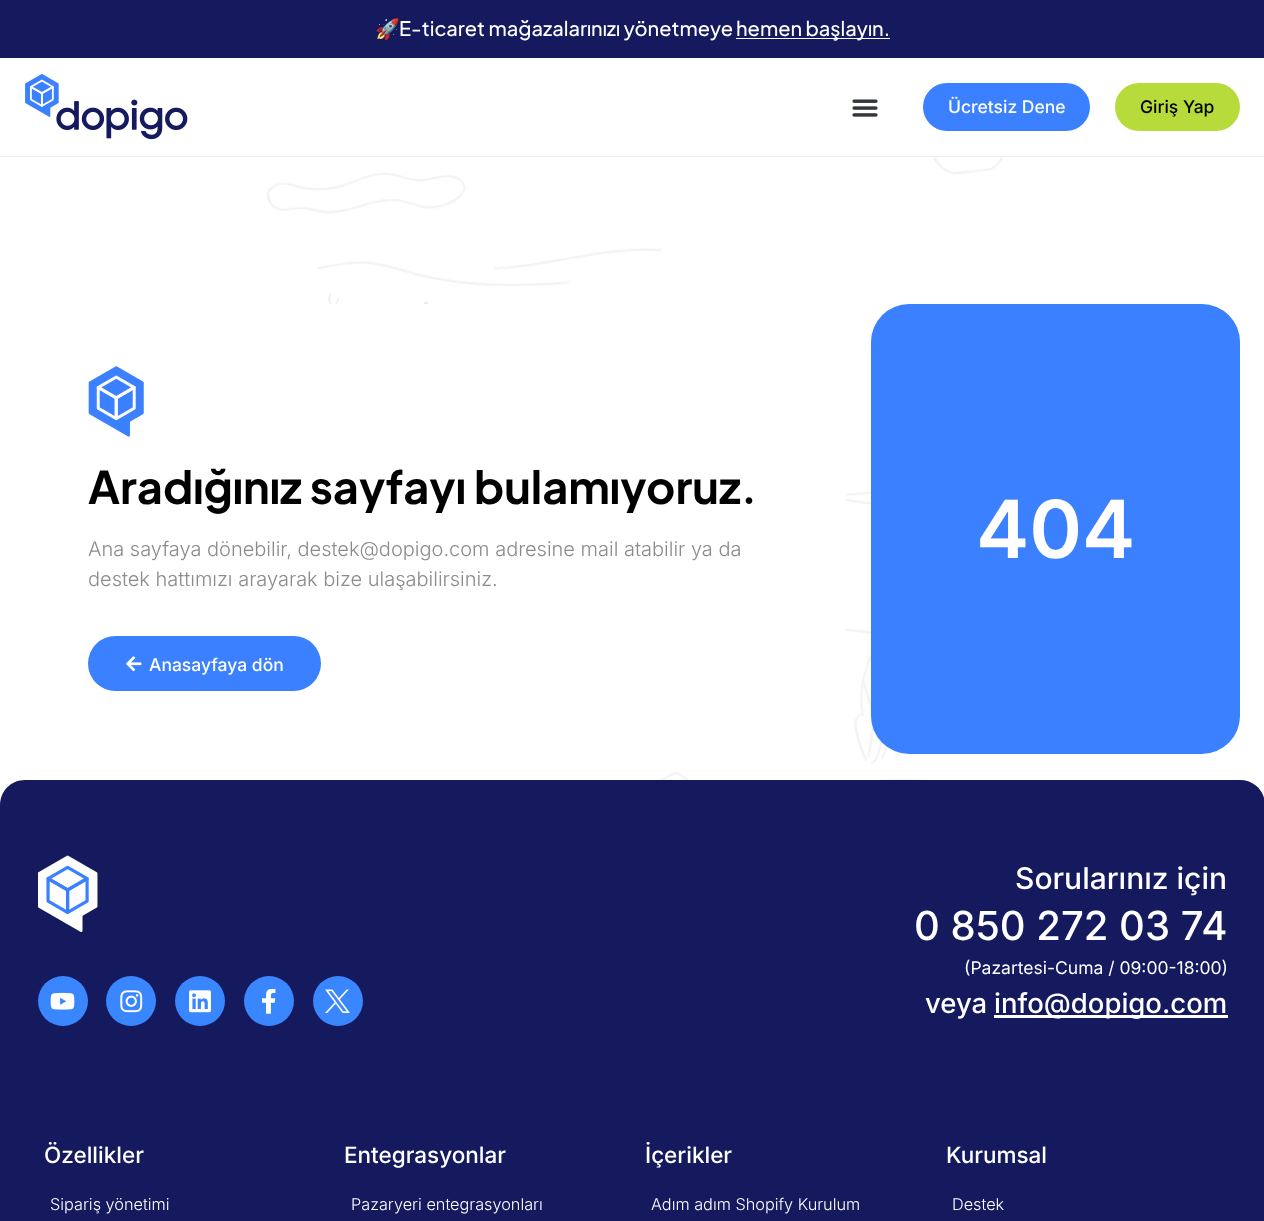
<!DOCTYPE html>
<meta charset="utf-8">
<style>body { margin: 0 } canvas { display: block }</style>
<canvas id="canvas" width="1264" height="1221"></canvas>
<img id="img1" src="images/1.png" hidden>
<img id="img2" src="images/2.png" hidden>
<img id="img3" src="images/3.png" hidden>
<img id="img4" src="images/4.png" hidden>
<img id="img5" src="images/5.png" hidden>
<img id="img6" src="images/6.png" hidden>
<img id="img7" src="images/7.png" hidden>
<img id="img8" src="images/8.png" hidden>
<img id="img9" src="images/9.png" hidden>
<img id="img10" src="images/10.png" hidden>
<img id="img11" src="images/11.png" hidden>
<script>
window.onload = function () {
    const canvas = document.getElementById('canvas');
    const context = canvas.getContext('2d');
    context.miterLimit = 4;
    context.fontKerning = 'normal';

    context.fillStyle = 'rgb(255, 255, 255)';
    context.fillRect(0, 0, 1264, 1221);
    context.fillStyle = 'rgb(21, 25, 94)';
    context.fillRect(0, 0, 1264, 58);
    context.fillStyle = 'rgb(255, 255, 255)';
    context.fillRect(736, 38, 154, 1);
    context.fillStyle = 'rgb(238, 238, 238)';
    context.fillRect(0, 156, 1264, 1);
    context.drawImage(document.getElementById('img1'), 25, 74, 163, 66);
    context.drawImage(document.getElementById('img2'), 852, 99, 26, 18);
    context.fillStyle = 'rgb(58, 128, 255)';
    context.beginPath();
    context.roundRect(923, 83, 167, 48, 24);
    context.fill();
    context.fillStyle = 'rgb(183, 219, 58)';
    context.beginPath();
    context.roundRect(1115, 83, 125, 48, 24);
    context.fill();
    context.drawImage(document.getElementById('img3'), 266, 157, 738, 623);
    context.fillStyle = 'rgb(255, 255, 255)';
    context.beginPath();
    context.roundRect(25, 304, 821, 450, 38);
    context.fill();
    context.drawImage(document.getElementById('img4'), 88, 366, 56, 71);
    context.fillStyle = 'rgb(58, 128, 255)';
    context.beginPath();
    context.roundRect(88, 636, 233, 55, 27.5);
    context.fill();
    context.drawImage(document.getElementById('img5'), 126, 656, 16, 16);
    context.beginPath();
    context.roundRect(871, 304, 369, 450, 38);
    context.fill();
    context.fillStyle = 'rgb(21, 25, 94)';
    context.beginPath();
    context.moveTo(25, 780);
    context.lineTo(1240, 780);
    context.bezierCurveTo(1254, 780, 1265, 791, 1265, 805);
    context.lineTo(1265, 1101);
    context.lineTo(0, 1101);
    context.lineTo(0, 805);
    context.bezierCurveTo(0, 791, 11, 780, 25, 780);
    context.closePath();
    context.fill();
    context.drawImage(document.getElementById('img6'), 38, 855, 60, 77);
    context.fillStyle = 'rgb(58, 134, 255)';
    context.beginPath();
    context.arc(63, 1001, 25, 0, 2 * Math.PI);
    context.fill();
    context.drawImage(document.getElementById('img7'), 50, 992, 25, 18);
    context.beginPath();
    context.arc(131, 1001, 25, 0, 2 * Math.PI);
    context.fill();
    context.drawImage(document.getElementById('img8'), 120, 990, 23, 23);
    context.beginPath();
    context.arc(200, 1001, 25, 0, 2 * Math.PI);
    context.fill();
    context.drawImage(document.getElementById('img9'), 189, 990, 22, 23);
    context.beginPath();
    context.arc(269, 1001, 25, 0, 2 * Math.PI);
    context.fill();
    context.drawImage(document.getElementById('img10'), 262, 989, 14, 25);
    context.beginPath();
    context.arc(338, 1001, 25, 0, 2 * Math.PI);
    context.fill();
    context.drawImage(document.getElementById('img11'), 325, 989, 25, 24);
    context.fillStyle = 'rgb(255, 255, 255)';
    context.fillRect(994, 1015, 234, 3);
    context.fillStyle = 'rgb(21, 25, 94)';
    context.fillRect(0, 1101, 1264, 120);
    context.font = '20px Noto Color Emoji';
    context.fillStyle = 'rgb(255, 255, 255)';
    context.fillText('🚀', 375, 36);
    context.font = '500 20px Plus Jakarta Sans';
    context.fillText('E-ticaret mağazalarınızı yönetmeye', 399, 36);
    context.fillText('hemen başlayın.', 736, 36);
    context.font = '500 17.5px Inter';
    context.fillText('Ücretsiz Dene', 948, 113);
    context.fillStyle = 'rgb(0, 0, 0)';
    context.fillText('Giriş Yap', 1140, 113);
    context.font = 'bold 45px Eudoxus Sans';
    context.fillText('Aradığınız sayfayı bulamıyoruz.', 88, 504);
    context.font = '300 20px Inter';
    context.fillStyle = 'rgb(139, 139, 139)';
    context.fillText('Ana sayfaya dönebilir, destek@dopigo.com adresine mail atabilir ya da', 88, 556);
    context.fillText('destek hattımızı arayarak bize ulaşabilirsiniz.', 88, 586);
    context.font = '500 17.5px Inter';
    context.fillStyle = 'rgb(255, 255, 255)';
    context.fillText('Anasayfaya dön', 149, 671);
    context.font = '600 80px Inter';
    context.fillText('404', 976, 558);
    context.font = '500 30px Inter';
    context.fillText('Sorularınız için', 1015, 889);
    context.font = '500 40px Inter';
    context.fillText('0 850 272 03 74', 914, 940);
    context.font = '17.5px Inter';
    context.fillText('(Pazartesi-Cuma / 09:00-18:00)', 964, 974);
    context.font = '500 27.5px Inter';
    context.fillText('veya', 925, 1013);
    context.fillText('info@dopigo.com', 994, 1013);
    context.font = '500 22.5px Inter';
    context.fillText('Özellikler', 44, 1163);
    context.font = '300 16.25px Inter';
    context.fillText('Sipariş yönetimi', 50, 1210);
    context.font = '500 22.5px Inter';
    context.fillText('Entegrasyonlar', 344, 1163);
    context.font = '300 16.25px Inter';
    context.fillText('Pazaryeri entegrasyonları', 351, 1210);
    context.font = '500 22.5px Inter';
    context.fillText('İçerikler', 645, 1163);
    context.font = '300 16.25px Inter';
    context.fillText('Adım adım Shopify Kurulum', 651, 1210);
    context.font = '500 22.5px Inter';
    context.fillText('Kurumsal', 946, 1163);
    context.font = '300 16.25px Inter';
    context.fillText('Destek', 952, 1210);
};
</script>
